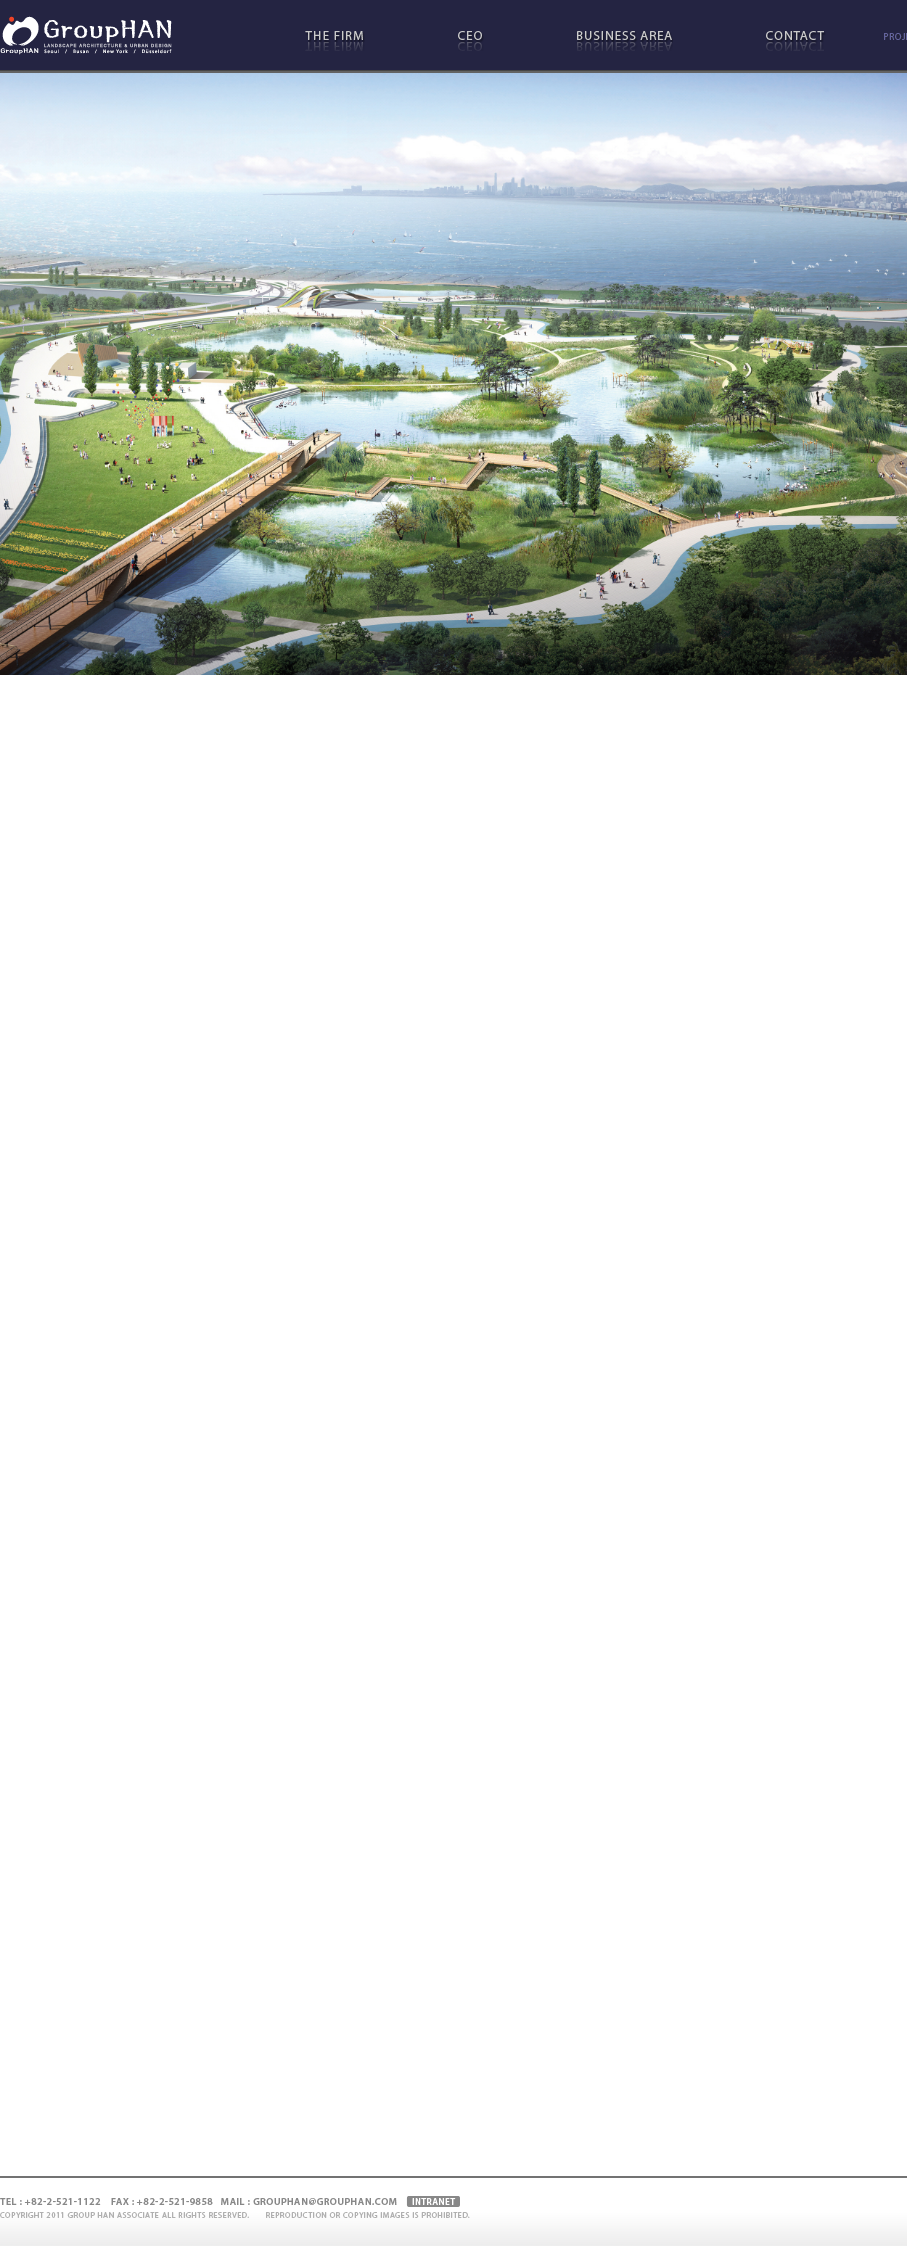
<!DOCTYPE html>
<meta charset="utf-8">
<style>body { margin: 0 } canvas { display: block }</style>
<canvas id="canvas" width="907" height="2246"></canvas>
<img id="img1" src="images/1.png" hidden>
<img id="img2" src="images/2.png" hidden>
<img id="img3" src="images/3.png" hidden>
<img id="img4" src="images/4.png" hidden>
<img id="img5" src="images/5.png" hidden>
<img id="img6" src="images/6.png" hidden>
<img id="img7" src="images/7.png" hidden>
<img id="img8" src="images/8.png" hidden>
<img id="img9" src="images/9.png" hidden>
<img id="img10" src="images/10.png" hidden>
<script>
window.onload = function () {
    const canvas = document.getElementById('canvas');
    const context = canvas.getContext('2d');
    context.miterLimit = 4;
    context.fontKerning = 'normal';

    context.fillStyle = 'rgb(255, 255, 255)';
    context.fillRect(0, 0, 907, 2246);
    context.drawImage(document.getElementById('img1'), 0, 0, 907, 73);
    context.drawImage(document.getElementById('img2'), 0, 16, 172, 39);
    context.drawImage(document.getElementById('img3'), 305, 31, 60, 20);
    context.drawImage(document.getElementById('img4'), 458, 31, 26, 20);
    context.drawImage(document.getElementById('img5'), 577, 31, 96, 20);
    context.drawImage(document.getElementById('img6'), 766, 31, 60, 20);
    context.drawImage(document.getElementById('img7'), 884, 33, 23, 7);
    context.drawImage(document.getElementById('img8'), 0, 73, 907, 602);
    context.drawImage(document.getElementById('img9'), 0, 2176, 907, 70);
    context.drawImage(document.getElementById('img10'), 0, 2196, 470, 22);
};
</script>
